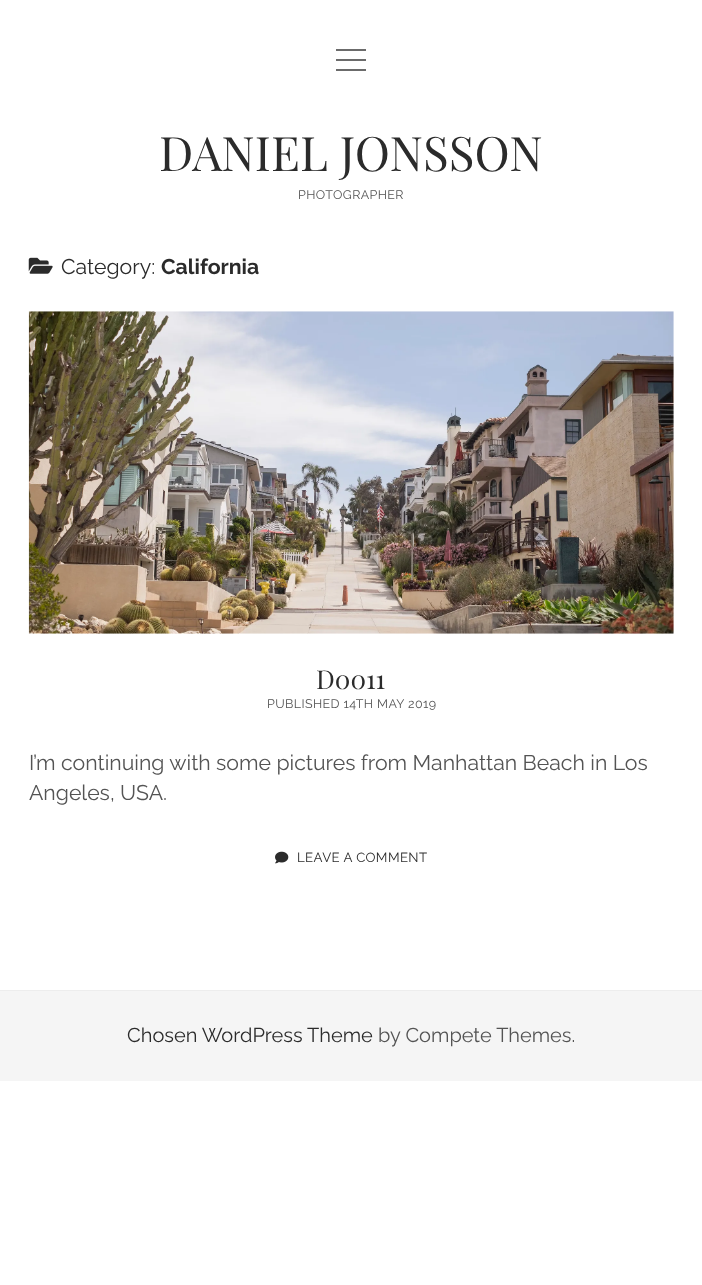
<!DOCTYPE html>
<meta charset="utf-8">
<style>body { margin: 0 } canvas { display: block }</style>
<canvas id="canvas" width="702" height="1285"></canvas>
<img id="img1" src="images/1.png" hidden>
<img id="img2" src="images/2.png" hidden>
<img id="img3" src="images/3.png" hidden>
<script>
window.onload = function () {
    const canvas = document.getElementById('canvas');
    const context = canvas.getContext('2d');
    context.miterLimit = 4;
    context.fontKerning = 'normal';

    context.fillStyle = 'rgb(255, 255, 255)';
    context.fillRect(0, 0, 702, 1285);
    context.fillStyle = 'rgb(107, 107, 107)';
    context.fillRect(336, 49, 30, 2);
    context.fillRect(336, 59, 30, 2);
    context.fillRect(336, 69, 30, 2);
    context.drawImage(document.getElementById('img1'), 28, 257, 25, 17);
    context.drawImage(document.getElementById('img2'), 28, 311, 646, 323);
    context.drawImage(document.getElementById('img3'), 275, 851, 14, 13);
    context.fillStyle = 'rgb(245, 245, 245)';
    context.fillRect(0, 991, 702, 90);
    context.fillStyle = 'rgb(237, 237, 237)';
    context.fillRect(0, 990, 702, 1);
    context.font = '47.5px Playfair Display';
    context.fillStyle = 'rgb(43, 43, 43)';
    context.fillText('DANIEL JONSSON', 159, 171);
    context.letterSpacing = '0.4px';
    context.font = '12.5px Raleway';
    context.fillStyle = 'rgb(84, 84, 84)';
    context.fillText('PHOTOGRAPHER', 298, 199);
    context.letterSpacing = '0px';
    context.font = '21.25px Raleway';
    context.fillStyle = 'rgb(43, 43, 43)';
    context.fillText('Category:', 61, 274);
    context.font = 'bold 21.25px Raleway';
    context.fillText('California', 161, 274);
    context.font = '26px Playfair Display';
    context.fillText('D0011', 316, 689);
    context.letterSpacing = '0.4px';
    context.font = '12.5px Raleway';
    context.fillStyle = 'rgb(84, 84, 84)';
    context.fillText('PUBLISHED 14TH MAY 2019', 267, 708);
    context.letterSpacing = '0px';
    context.font = '21.25px Raleway';
    context.fillText('I’m continuing with some pictures from Manhattan Beach in Los', 29, 770);
    context.fillText('Angeles, USA.', 29, 800);
    context.letterSpacing = '0.4px';
    context.font = '13.25px Raleway';
    context.fillStyle = 'rgb(43, 43, 43)';
    context.fillText('LEAVE A COMMENT', 297, 862);
    context.letterSpacing = '0px';
    context.font = '20px Raleway';
    context.fillText('Chosen WordPress Theme', 127, 1042);
    context.fillStyle = 'rgb(84, 84, 84)';
    context.fillText('by Compete Themes.', 378, 1042);
};
</script>
